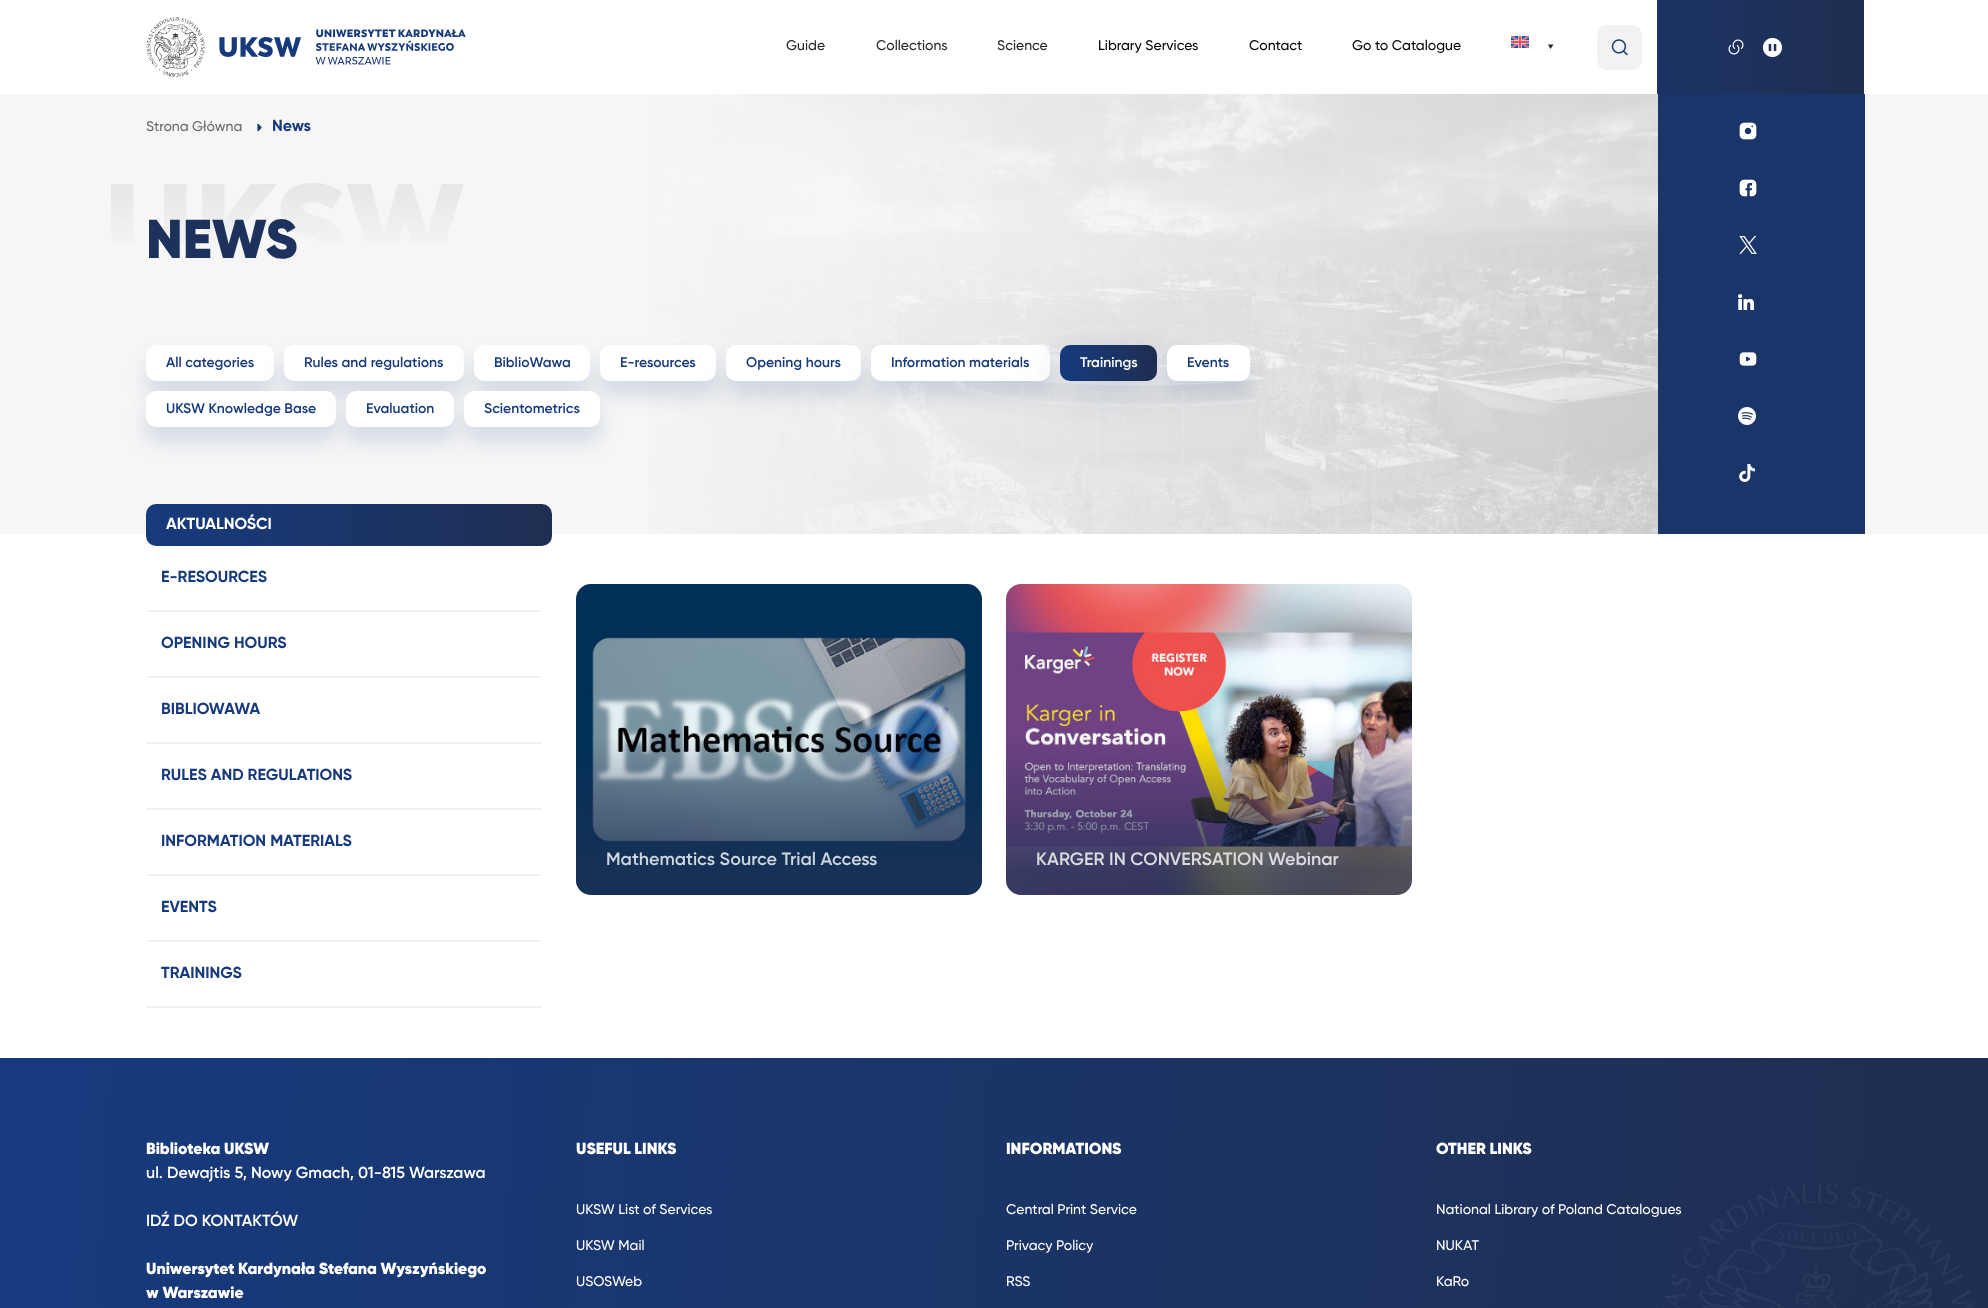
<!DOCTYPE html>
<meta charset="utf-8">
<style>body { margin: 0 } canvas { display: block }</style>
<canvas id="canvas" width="1988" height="1308"></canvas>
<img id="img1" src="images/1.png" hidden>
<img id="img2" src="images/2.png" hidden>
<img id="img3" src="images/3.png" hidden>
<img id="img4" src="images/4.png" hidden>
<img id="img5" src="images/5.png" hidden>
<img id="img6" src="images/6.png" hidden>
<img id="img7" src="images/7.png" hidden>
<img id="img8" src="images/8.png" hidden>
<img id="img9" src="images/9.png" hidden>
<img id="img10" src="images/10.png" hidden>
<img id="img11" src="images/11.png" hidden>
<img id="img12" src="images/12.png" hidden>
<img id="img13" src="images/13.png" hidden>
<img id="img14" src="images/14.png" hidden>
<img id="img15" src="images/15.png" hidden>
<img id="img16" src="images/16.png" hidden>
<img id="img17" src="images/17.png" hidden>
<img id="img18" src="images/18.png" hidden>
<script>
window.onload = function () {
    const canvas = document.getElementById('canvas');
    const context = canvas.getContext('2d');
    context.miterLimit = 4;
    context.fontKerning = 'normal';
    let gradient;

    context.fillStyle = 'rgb(255, 255, 255)';
    context.fillRect(0, 0, 1988, 1308);
    context.drawImage(document.getElementById('img1'), 146, 17, 320, 60);
    context.drawImage(document.getElementById('img2'), 1511, 36, 18, 12);
    context.fillStyle = 'rgb(38, 38, 38)';
    context.beginPath();
    context.moveTo(1553.5, 44.5);
    context.lineTo(1550.5, 49);
    context.lineTo(1548, 44.5);
    context.closePath();
    context.fill();
    context.fillStyle = 'rgb(242, 242, 242)';
    context.beginPath();
    context.roundRect(1597, 25, 45, 45, 10);
    context.fill();
    context.drawImage(document.getElementById('img3'), 1611, 39, 17, 17);
    gradient = context.createLinearGradient(1396, 68, 1866, 41);
    gradient.addColorStop(0, 'rgb(22, 58, 125)');
    gradient.addColorStop(0.95, 'rgb(31, 47, 83)');
    context.fillStyle = gradient;
    context.fillRect(1657, 0, 207, 94);
    context.drawImage(document.getElementById('img4'), 1728, 39, 16, 16);
    context.drawImage(document.getElementById('img5'), 1762, 37, 21, 21);
    context.fillStyle = 'rgb(246, 246, 246)';
    context.fillRect(0, 94, 1988, 440);
    context.drawImage(document.getElementById('img6'), 649, 94, 1009, 440);
    context.drawImage(document.getElementById('img7'), 257, 123, 5, 9);
    context.drawImage(document.getElementById('img8'), 111, 183, 353, 60);
    context.fillStyle = 'rgba(22, 58, 125, 0.15)';
    context.filter = 'blur(10px)';
    context.beginPath();
    context.roundRect(146, 360, 128, 36, 10);
    context.fill();
    context.filter = 'none';
    context.fillStyle = 'rgb(255, 255, 255)';
    context.beginPath();
    context.roundRect(146, 345, 128, 36, 10);
    context.fill();
    context.fillStyle = 'rgba(22, 58, 125, 0.15)';
    context.filter = 'blur(10px)';
    context.beginPath();
    context.roundRect(284, 360, 180, 36, 10);
    context.fill();
    context.filter = 'none';
    context.fillStyle = 'rgb(255, 255, 255)';
    context.beginPath();
    context.roundRect(284, 345, 180, 36, 10);
    context.fill();
    context.fillStyle = 'rgba(22, 58, 125, 0.15)';
    context.filter = 'blur(10px)';
    context.beginPath();
    context.roundRect(474, 360, 116, 36, 10);
    context.fill();
    context.filter = 'none';
    context.fillStyle = 'rgb(255, 255, 255)';
    context.beginPath();
    context.roundRect(474, 345, 116, 36, 10);
    context.fill();
    context.fillStyle = 'rgba(22, 58, 125, 0.15)';
    context.filter = 'blur(10px)';
    context.beginPath();
    context.roundRect(600, 360, 116, 36, 10);
    context.fill();
    context.filter = 'none';
    context.fillStyle = 'rgb(255, 255, 255)';
    context.beginPath();
    context.roundRect(600, 345, 116, 36, 10);
    context.fill();
    context.fillStyle = 'rgba(22, 58, 125, 0.15)';
    context.filter = 'blur(10px)';
    context.beginPath();
    context.roundRect(726, 360, 135, 36, 10);
    context.fill();
    context.filter = 'none';
    context.fillStyle = 'rgb(255, 255, 255)';
    context.beginPath();
    context.roundRect(726, 345, 135, 36, 10);
    context.fill();
    context.fillStyle = 'rgba(22, 58, 125, 0.15)';
    context.filter = 'blur(10px)';
    context.beginPath();
    context.roundRect(871, 360, 179, 36, 10);
    context.fill();
    context.filter = 'none';
    context.fillStyle = 'rgb(255, 255, 255)';
    context.beginPath();
    context.roundRect(871, 345, 179, 36, 10);
    context.fill();
    context.fillStyle = 'rgba(22, 58, 125, 0.2)';
    context.filter = 'blur(20px)';
    context.beginPath();
    context.roundRect(1060, 355, 97, 36, 10);
    context.fill();
    context.filter = 'none';
    gradient = context.createLinearGradient(1059, 360, 1158, 366);
    gradient.addColorStop(0.03, 'rgb(22, 58, 125)');
    gradient.addColorStop(0.94, 'rgb(31, 47, 83)');
    context.fillStyle = gradient;
    context.beginPath();
    context.roundRect(1060, 345, 97, 36, 10);
    context.fill();
    context.fillStyle = 'rgba(22, 58, 125, 0.15)';
    context.filter = 'blur(10px)';
    context.beginPath();
    context.roundRect(1167, 360, 83, 36, 10);
    context.fill();
    context.filter = 'none';
    context.fillStyle = 'rgb(255, 255, 255)';
    context.beginPath();
    context.roundRect(1167, 345, 83, 36, 10);
    context.fill();
    context.fillStyle = 'rgba(22, 58, 125, 0.15)';
    context.filter = 'blur(10px)';
    context.beginPath();
    context.roundRect(146, 406, 190, 36, 10);
    context.fill();
    context.filter = 'none';
    context.fillStyle = 'rgb(255, 255, 255)';
    context.beginPath();
    context.roundRect(146, 391, 190, 36, 10);
    context.fill();
    context.fillStyle = 'rgba(22, 58, 125, 0.15)';
    context.filter = 'blur(10px)';
    context.beginPath();
    context.roundRect(346, 406, 108, 36, 10);
    context.fill();
    context.filter = 'none';
    context.fillStyle = 'rgb(255, 255, 255)';
    context.beginPath();
    context.roundRect(346, 391, 108, 36, 10);
    context.fill();
    context.fillStyle = 'rgba(22, 58, 125, 0.15)';
    context.filter = 'blur(10px)';
    context.beginPath();
    context.roundRect(464, 406, 136, 36, 10);
    context.fill();
    context.filter = 'none';
    context.fillStyle = 'rgb(255, 255, 255)';
    context.beginPath();
    context.roundRect(464, 391, 136, 36, 10);
    context.fill();
    context.fillStyle = 'rgb(26, 53, 105)';
    context.fillRect(1658, 94, 207, 440);
    context.drawImage(document.getElementById('img9'), 1739, 122, 18, 18);
    context.drawImage(document.getElementById('img10'), 1739, 179, 18, 18);
    context.drawImage(document.getElementById('img11'), 1739, 235, 18, 19);
    context.drawImage(document.getElementById('img12'), 1738, 294, 16, 16);
    context.drawImage(document.getElementById('img13'), 1739, 352, 18, 14);
    context.drawImage(document.getElementById('img14'), 1738, 407, 18, 18);
    context.drawImage(document.getElementById('img15'), 1739, 464, 16, 18);
    gradient = context.createLinearGradient(145, 533, 553, 517);
    gradient.addColorStop(0.01, 'rgb(22, 58, 125)');
    gradient.addColorStop(0.99, 'rgb(31, 47, 83)');
    context.fillStyle = gradient;
    context.beginPath();
    context.roundRect(146, 504, 406, 42, 10);
    context.fill();
    context.fillStyle = 'rgb(242, 242, 242)';
    context.fillRect(146, 610, 396, 2);
    context.fillRect(146, 676, 396, 2);
    context.fillRect(146, 742, 396, 2);
    context.fillRect(146, 808, 396, 2);
    context.fillRect(146, 874, 396, 2);
    context.fillRect(146, 940, 396, 2);
    context.fillRect(146, 1006, 396, 2);
    context.drawImage(document.getElementById('img16'), 576, 584, 406, 311);
    gradient = context.createLinearGradient(779, 895, 779, 584);
    gradient.addColorStop(0.08, 'rgba(32, 48, 84, 0.72)');
    gradient.addColorStop(0.51, 'rgba(32, 48, 84, 0)');
    context.fillStyle = gradient;
    context.beginPath();
    context.roundRect(576, 584, 406, 311, 15);
    context.fill();
    context.drawImage(document.getElementById('img17'), 1006, 584, 406, 311);
    gradient = context.createLinearGradient(1209, 895, 1209, 584);
    gradient.addColorStop(0.08, 'rgba(32, 48, 84, 0.72)');
    gradient.addColorStop(0.51, 'rgba(32, 48, 84, 0)');
    context.fillStyle = gradient;
    context.beginPath();
    context.roundRect(1006, 584, 406, 311, 15);
    context.fill();
    gradient = context.createLinearGradient(-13, 1284, 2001, 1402);
    gradient.addColorStop(0.03, 'rgb(22, 58, 125)');
    gradient.addColorStop(0.94, 'rgb(31, 47, 83)');
    context.fillStyle = gradient;
    context.fillRect(0, 1058, 1988, 250);
    context.font = '500 14px Gilroy';
    context.fillStyle = 'rgb(38, 38, 38)';
    context.fillText('Guide', 786, 50);
    context.fillText('Collections', 876, 50);
    context.fillText('Science', 997, 50);
    context.fillStyle = 'rgb(0, 0, 0)';
    context.fillText('Library Services', 1098, 50);
    context.fillText('Contact', 1249, 50);
    context.fillText('Go to Catalogue', 1352, 50);
    context.fillStyle = 'rgb(106, 106, 106)';
    context.fillText('Strona Główna', 146, 131);
    context.font = 'bold 16px Gilroy';
    context.fillStyle = 'rgb(22, 58, 125)';
    context.fillText('News', 272, 131);
    context.font = '900 54.5px Gilroy';
    context.fillStyle = 'rgb(28, 49, 91)';
    context.fillText('NEWS', 146, 258);
    context.font = '600 14px Gilroy';
    context.fillStyle = 'rgb(22, 58, 125)';
    context.fillText('All categories', 166, 367);
    context.fillText('Rules and regulations', 304, 367);
    context.fillText('BiblioWawa', 494, 367);
    context.fillText('E-resources', 620, 367);
    context.fillText('Opening hours', 746, 367);
    context.fillText('Information materials', 891, 367);
    context.fillStyle = 'rgb(255, 255, 255)';
    context.fillText('Trainings', 1080, 367);
    context.fillStyle = 'rgb(22, 58, 125)';
    context.fillText('Events', 1187, 367);
    context.fillText('UKSW Knowledge Base', 166, 413);
    context.fillText('Evaluation', 366, 413);
    context.fillText('Scientometrics', 484, 413);
    context.font = 'bold 16px Gilroy';
    context.fillStyle = 'rgb(255, 255, 255)';
    context.fillText('AKTUALNOŚCI', 166, 529);
    context.fillStyle = 'rgb(22, 58, 125)';
    context.fillText('E-RESOURCES', 161, 582);
    context.fillText('OPENING HOURS', 161, 648);
    context.fillText('BIBLIOWAWA', 161, 714);
    context.fillText('RULES AND REGULATIONS', 161, 780);
    context.fillText('INFORMATION MATERIALS', 161, 846);
    context.fillText('EVENTS', 161, 912);
    context.fillText('TRAININGS', 161, 978);
    context.font = '600 18px Gilroy';
    context.fillStyle = 'rgb(204, 214, 222)';
    context.fillText('Mathematics Source Trial Access', 606, 865);
    context.fillStyle = 'rgb(219, 219, 224)';
    context.fillText('KARGER IN CONVERSATION Webinar', 1036, 865);
    context.font = '900 16px Gilroy';
    context.fillStyle = 'rgb(255, 255, 255)';
    context.fillText('Biblioteka UKSW', 146, 1154);
    context.font = '600 16px Gilroy';
    context.fillText('ul. Dewajtis 5, Nowy Gmach, 01-815 Warszawa', 146, 1178);
    context.fillText('IDŹ DO KONTAKTÓW', 146, 1226);
    context.font = '900 16px Gilroy';
    context.fillText('Uniwersytet Kardynała Stefana Wyszyńskiego', 146, 1274);
    context.fillText('w Warszawie', 146, 1298);
    context.fillText('USEFUL LINKS', 576, 1154);
    context.font = '500 14px Gilroy';
    context.fillText('UKSW List of Services', 576, 1214);
    context.fillText('UKSW Mail', 576, 1250);
    context.fillText('USOSWeb', 576, 1286);
    context.font = '900 16px Gilroy';
    context.fillText('INFORMATIONS', 1006, 1154);
    context.font = '500 14px Gilroy';
    context.fillText('Central Print Service', 1006, 1214);
    context.fillText('Privacy Policy', 1006, 1250);
    context.fillText('RSS', 1006, 1286);
    context.font = '900 16px Gilroy';
    context.fillText('OTHER LINKS', 1436, 1154);
    context.font = '500 14px Gilroy';
    context.fillText('National Library of Poland Catalogues', 1436, 1214);
    context.fillText('NUKAT', 1436, 1250);
    context.fillText('KaRo', 1436, 1286);
    context.drawImage(document.getElementById('img18'), 1662, 1183, 311, 125);
};
</script>
